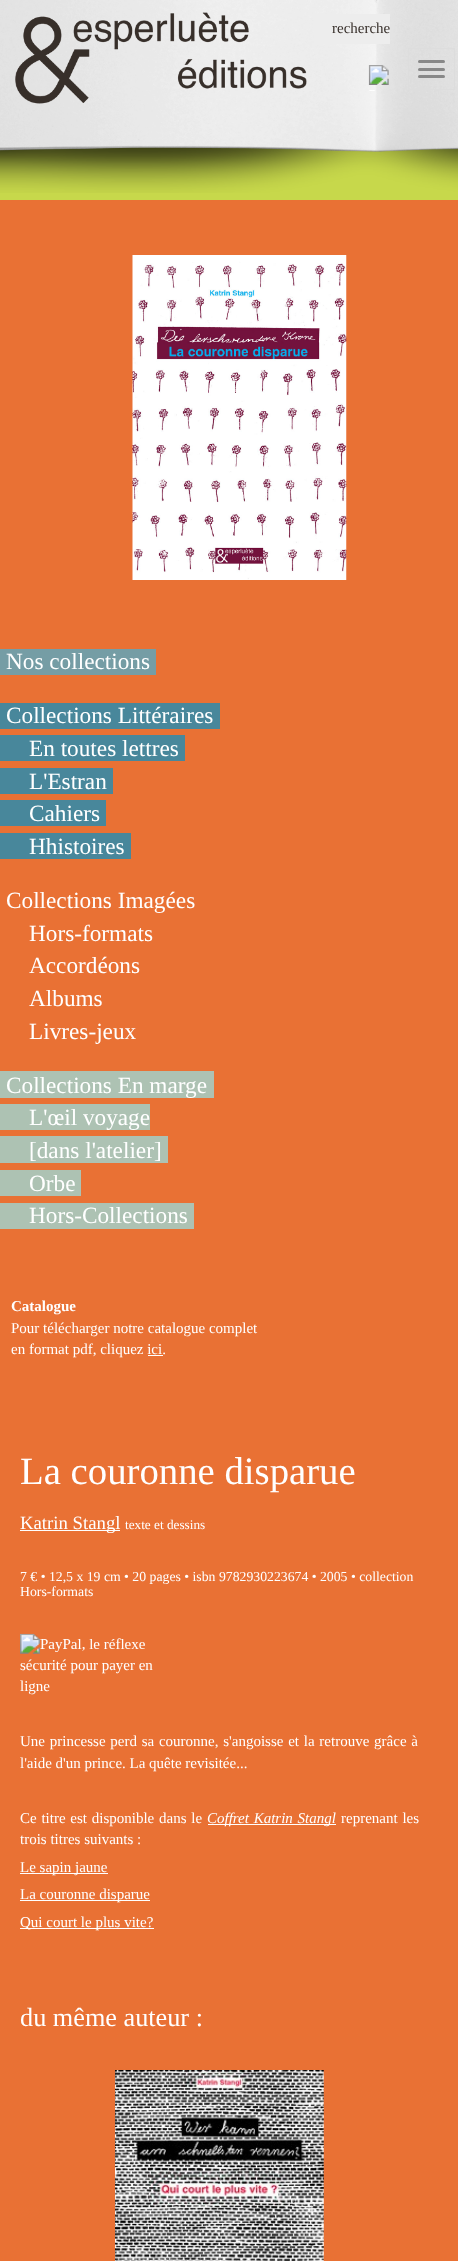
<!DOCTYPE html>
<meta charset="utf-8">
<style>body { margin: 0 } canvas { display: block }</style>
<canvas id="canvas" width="458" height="2261"></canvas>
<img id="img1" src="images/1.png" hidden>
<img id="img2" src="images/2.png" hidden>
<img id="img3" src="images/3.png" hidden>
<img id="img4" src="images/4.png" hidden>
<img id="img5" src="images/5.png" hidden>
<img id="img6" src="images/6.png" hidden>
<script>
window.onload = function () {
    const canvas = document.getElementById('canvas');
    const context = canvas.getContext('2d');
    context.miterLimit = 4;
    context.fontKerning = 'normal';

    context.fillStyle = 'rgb(199, 216, 75)';
    context.fillRect(0, 0, 458, 2261);
    context.drawImage(document.getElementById('img1'), 0, 0, 458, 193);
    context.drawImage(document.getElementById('img2'), 15, 12, 292, 92);
    context.fillStyle = 'rgb(237, 237, 237)';
    context.fillRect(314, 14, 76, 30);
    context.drawImage(document.getElementById('img3'), 368, 65, 21, 26);
    context.strokeStyle = 'rgb(221, 221, 221)';
    context.strokeRect(408.5, 48.5, 46, 41);
    context.fillStyle = 'rgb(136, 136, 136)';
    context.beginPath();
    context.roundRect(418, 60, 27, 3, 1.5);
    context.fill();
    context.beginPath();
    context.roundRect(418, 68, 27, 3, 1.5);
    context.fill();
    context.beginPath();
    context.roundRect(418, 75, 27, 3, 1.5);
    context.fill();
    context.fillStyle = 'rgb(233, 113, 52)';
    context.fillRect(0, 200, 458, 2061);
    context.drawImage(document.getElementById('img4'), 132, 255, 215, 325);
    context.fillStyle = 'rgb(117, 157, 165)';
    context.fillRect(0, 649, 156, 26);
    context.fillStyle = 'rgb(72, 135, 155)';
    context.fillRect(0, 703, 220, 26);
    context.fillRect(0, 735, 185, 26);
    context.fillRect(0, 768, 113, 26);
    context.fillRect(0, 800, 106, 26);
    context.fillRect(0, 833, 131, 26);
    context.fillStyle = 'rgb(173, 194, 179)';
    context.fillRect(0, 1071, 214, 27);
    context.fillRect(0, 1104, 150, 26);
    context.fillRect(0, 1136, 168, 27);
    context.fillRect(0, 1170, 81, 26);
    context.fillRect(0, 1203, 194, 26);
    context.fillStyle = 'rgb(255, 255, 255)';
    context.fillRect(148, 1355, 15, 1);
    context.fillRect(20, 1530, 100, 1);
    context.drawImage(document.getElementById('img5'), 20, 1633, 125, 21);
    context.fillRect(208, 1824, 128, 1);
    context.fillRect(20, 1873, 88, 1);
    context.fillRect(20, 1900, 130, 1);
    context.fillRect(20, 1928, 134, 1);
    context.drawImage(document.getElementById('img6'), 115, 2070, 209, 191);
    context.font = '15px Liberation Serif';
    context.fillStyle = 'rgb(55, 47, 42)';
    context.fillText('recherche', 332, 33);
    context.font = '23.25px Liberation Serif';
    context.fillStyle = 'rgb(255, 255, 255)';
    context.fillText('Nos collections', 6, 669);
    context.fillText('Collections Littéraires', 6, 723);
    context.fillText('En toutes lettres', 29, 756);
    context.fillText('L\'Estran', 29, 789);
    context.fillText('Cahiers', 29, 821);
    context.fillText('Hhistoires', 29, 854);
    context.fillText('Collections Imagées', 6, 908);
    context.fillText('Hors-formats', 29, 941);
    context.fillText('Accordéons', 29, 973);
    context.fillText('Albums', 29, 1006);
    context.fillText('Livres-jeux', 29, 1039);
    context.fillText('Collections En marge', 6, 1093);
    context.fillText('L\'œil voyage', 29, 1125);
    context.fillText('[dans l\'atelier]', 29, 1158);
    context.fillText('Orbe', 29, 1191);
    context.fillText('Hors-Collections', 29, 1223);
    context.font = 'bold 15px Liberation Serif';
    context.fillText('Catalogue', 11, 1311);
    context.font = '15px Liberation Serif';
    context.fillText('Pour télécharger notre catalogue complet', 11, 1333);
    context.fillText('en format pdf, cliquez ici.', 11, 1354);
    context.font = '38.75px Liberation Serif';
    context.fillText('La couronne disparue', 20, 1484);
    context.font = '18.75px Liberation Serif';
    context.fillText('Katrin Stangl', 20, 1529);
    context.font = '13.25px Liberation Serif';
    context.fillText('texte et dessins', 125, 1529);
    context.font = '13.75px Liberation Serif';
    context.fillText('7 € • 12,5 x 19 cm • 20 pages • isbn 9782930223674 • 2005 • collection', 20, 1581);
    context.fillText('Hors-formats', 20, 1596);
    context.font = '15px Liberation Serif';
    context.fillText('sécurité pour payer en', 20, 1670);
    context.fillText('ligne', 20, 1691);
    context.wordSpacing = '1px';
    context.fillText('Une princesse perd sa couronne, s\'angoisse et la retrouve grâce à', 20, 1746);
    context.wordSpacing = '0px';
    context.fillText('l\'aide d\'un prince. La quête revisitée...', 20, 1768);
    context.wordSpacing = '1px';
    context.fillText('Ce titre est disponible dans le', 20, 1823);
    context.font = 'italic 15px Liberation Serif';
    context.fillText('Coffret Katrin Stangl', 207, 1823);
    context.font = '15px Liberation Serif';
    context.fillText('reprenant les', 341, 1823);
    context.wordSpacing = '0px';
    context.fillText('trois titres suivants :', 20, 1844);
    context.fillText('Le sapin jaune', 20, 1872);
    context.fillText('La couronne disparue', 20, 1899);
    context.fillText('Qui court le plus vite?', 20, 1927);
    context.font = '26.25px Liberation Serif';
    context.fillText('du même auteur :', 20, 2026);
};
</script>
